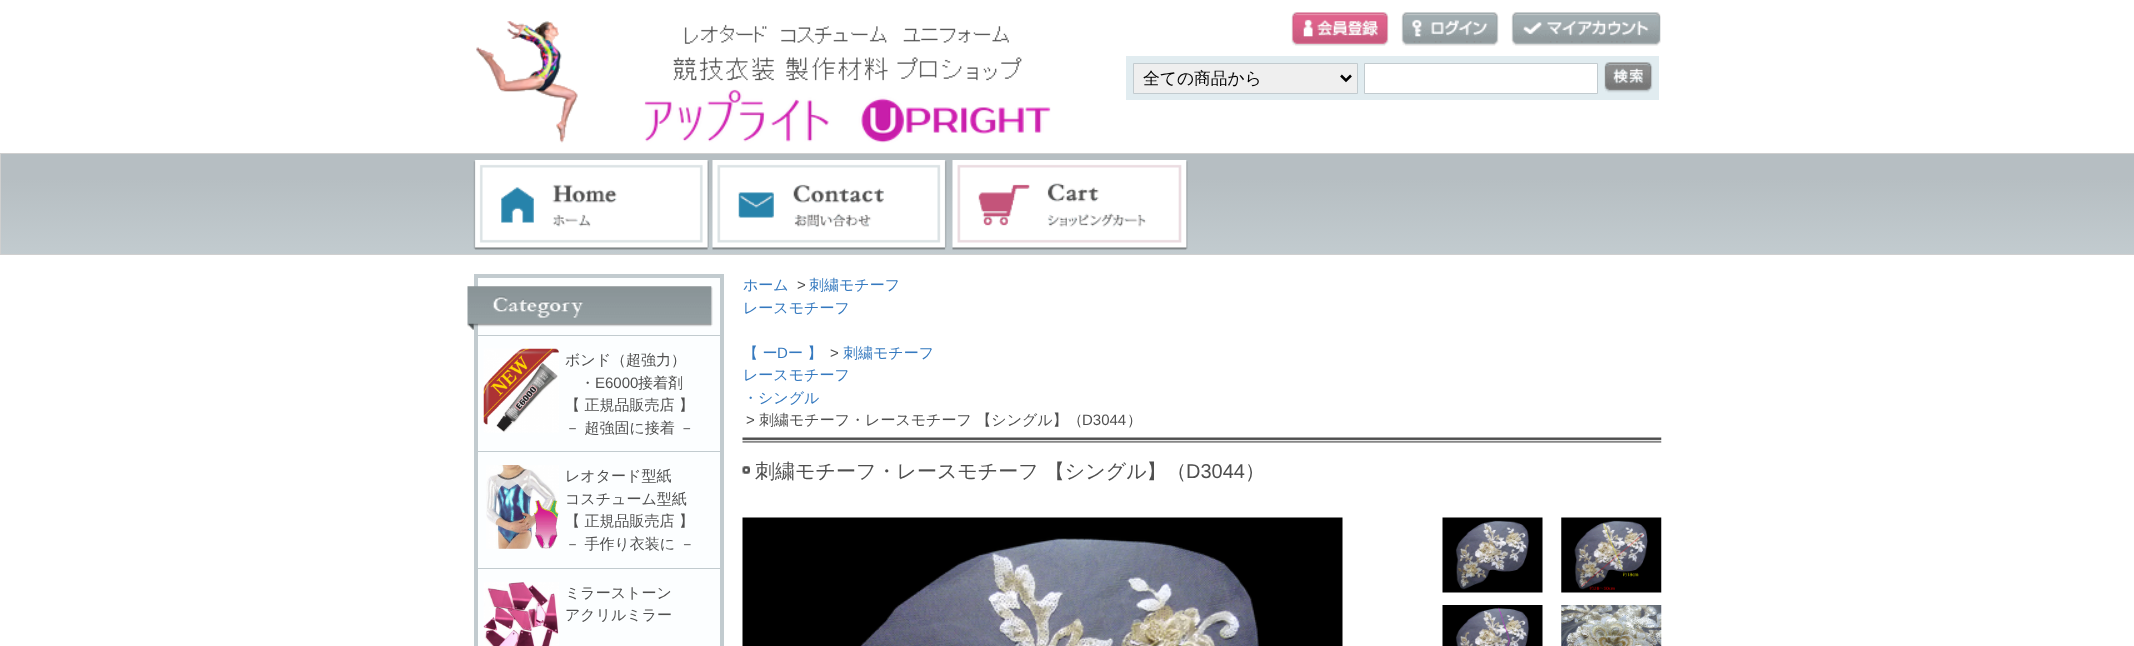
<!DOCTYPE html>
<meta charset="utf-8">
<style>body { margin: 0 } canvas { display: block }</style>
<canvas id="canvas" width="2134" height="646"></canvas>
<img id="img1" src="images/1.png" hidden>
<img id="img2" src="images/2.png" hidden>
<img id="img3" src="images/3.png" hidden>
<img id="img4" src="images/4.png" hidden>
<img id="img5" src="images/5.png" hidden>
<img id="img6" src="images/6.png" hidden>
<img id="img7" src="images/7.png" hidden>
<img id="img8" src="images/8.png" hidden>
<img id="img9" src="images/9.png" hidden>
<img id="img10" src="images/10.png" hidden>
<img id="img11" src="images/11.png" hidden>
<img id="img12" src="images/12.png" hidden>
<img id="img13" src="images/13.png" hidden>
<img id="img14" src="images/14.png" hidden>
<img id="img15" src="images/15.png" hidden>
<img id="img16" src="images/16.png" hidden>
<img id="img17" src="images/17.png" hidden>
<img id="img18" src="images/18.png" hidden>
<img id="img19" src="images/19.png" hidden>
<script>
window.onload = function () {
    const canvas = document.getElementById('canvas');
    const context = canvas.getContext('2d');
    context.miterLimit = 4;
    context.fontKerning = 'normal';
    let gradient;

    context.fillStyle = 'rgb(255, 255, 255)';
    context.fillRect(0, 0, 2134, 646);
    context.drawImage(document.getElementById('img1'), 476, 21, 575, 122);
    context.fillStyle = 'rgb(225, 236, 240)';
    context.fillRect(1126, 56, 533, 44);
    context.fillStyle = 'rgb(239, 239, 239)';
    context.beginPath();
    context.rect(1133.5, 63.5, 224, 30);
    context.fill();
    context.strokeStyle = 'rgb(194, 203, 207)';
    context.stroke();
    context.beginPath();
    context.moveTo(1341, 75.5);
    context.lineTo(1346, 80.5);
    context.lineTo(1351, 75.5);
    context.strokeStyle = 'rgb(0, 0, 0)';
    context.lineWidth = 2.5;
    context.stroke();
    context.fillStyle = 'rgb(255, 255, 255)';
    context.beginPath();
    context.rect(1364.5, 63.5, 233, 30);
    context.fill();
    context.strokeStyle = 'rgb(194, 203, 207)';
    context.lineWidth = 1;
    context.stroke();
    context.drawImage(document.getElementById('img2'), 1604, 62, 49, 31);
    context.drawImage(document.getElementById('img3'), 1291, 12, 98, 34);
    context.drawImage(document.getElementById('img4'), 1401, 12, 98, 34);
    context.drawImage(document.getElementById('img5'), 1511, 12, 150, 34);
    gradient = context.createLinearGradient(1068, 154, 1068, 254);
    gradient.addColorStop(0.25, 'rgb(182, 190, 194)');
    gradient.addColorStop(1, 'rgb(194, 203, 207)');
    context.fillStyle = gradient;
    context.fillRect(1, 154, 2133, 100);
    context.strokeStyle = 'rgb(207, 207, 207)';
    context.strokeRect(0.5, 153.5, 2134, 101);
    context.drawImage(document.getElementById('img6'), 473, 160, 236, 90);
    context.drawImage(document.getElementById('img7'), 712, 160, 235, 90);
    context.drawImage(document.getElementById('img8'), 952, 160, 236, 90);
    context.fillStyle = 'rgb(252, 254, 255)';
    context.beginPath();
    context.rect(476, 276, 246, 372);
    context.fill();
    context.strokeStyle = 'rgb(194, 203, 207)';
    context.lineWidth = 4;
    context.stroke();
    context.drawImage(document.getElementById('img9'), 467, 286, 246, 44);
    context.fillStyle = 'rgb(194, 203, 207)';
    context.fillRect(478, 335, 242, 1);
    context.drawImage(document.getElementById('img10'), 483, 348, 76, 85);
    context.fillRect(478, 451, 242, 1);
    context.drawImage(document.getElementById('img11'), 486, 465, 73, 84);
    context.fillRect(478, 568, 242, 1);
    context.drawImage(document.getElementById('img12'), 483, 582, 76, 64);
    context.drawImage(document.getElementById('img13'), 742, 437, 920, 6);
    context.drawImage(document.getElementById('img14'), 742, 466, 8, 8);
    context.drawImage(document.getElementById('img15'), 742, 517, 601, 129);
    context.drawImage(document.getElementById('img16'), 1442, 517, 101, 76);
    context.drawImage(document.getElementById('img17'), 1561, 517, 101, 76);
    context.drawImage(document.getElementById('img18'), 1442, 605, 101, 41);
    context.drawImage(document.getElementById('img19'), 1561, 605, 101, 41);
    context.font = '500 16.75px WenQuanYi Zen Hei';
    context.fillStyle = 'rgb(0, 0, 0)';
    context.fillText('全ての商品から', 1143, 84);
    context.font = '500 15px WenQuanYi Zen Hei';
    context.fillStyle = 'rgb(79, 79, 79)';
    context.fillText('ボンド（超強力）', 565, 365);
    context.fillText('・', 580, 388);
    context.font = '15px Liberation Sans';
    context.fillText('E6000', 595, 388);
    context.font = '500 15px WenQuanYi Zen Hei';
    context.fillText('接着剤', 638, 388);
    context.fillText('【 正規品販売店 】', 565, 410);
    context.fillText('－ 超強固に接着 －', 565, 433);
    context.fillText('レオタード型紙', 565, 481);
    context.fillText('コスチューム型紙', 565, 504);
    context.fillText('【 正規品販売店 】', 565, 526);
    context.fillText('－ 手作り衣装に －', 565, 549);
    context.fillText('ミラーストーン', 565, 598);
    context.fillText('アクリルミラー', 565, 620);
    context.fillStyle = 'rgb(53, 121, 191)';
    context.fillText('ホーム', 743, 290);
    context.font = '15px Liberation Sans';
    context.fillStyle = 'rgb(79, 79, 79)';
    context.fillText('>', 797, 290);
    context.font = '500 15px WenQuanYi Zen Hei';
    context.fillStyle = 'rgb(53, 121, 191)';
    context.fillText('刺繍モチーフ', 809, 290);
    context.fillText('レースモチーフ', 743, 313);
    context.fillText('【 ー', 743, 358);
    context.font = '15px Liberation Sans';
    context.fillText('D', 777, 358);
    context.font = '500 15px WenQuanYi Zen Hei';
    context.fillText('ー 】', 788, 358);
    context.font = '15px Liberation Sans';
    context.fillStyle = 'rgb(79, 79, 79)';
    context.fillText('>', 830, 358);
    context.font = '500 15px WenQuanYi Zen Hei';
    context.fillStyle = 'rgb(53, 121, 191)';
    context.fillText('刺繍モチーフ', 843, 358);
    context.fillText('レースモチーフ', 743, 380);
    context.fillText('・シングル', 743, 403);
    context.font = '15px Liberation Sans';
    context.fillStyle = 'rgb(79, 79, 79)';
    context.fillText('>', 746, 425);
    context.font = '500 15px WenQuanYi Zen Hei';
    context.fillText('刺繍モチーフ・レースモチーフ 【シングル】（', 759, 425);
    context.font = '15px Liberation Sans';
    context.fillText('D3044', 1082, 425);
    context.font = '500 15px WenQuanYi Zen Hei';
    context.fillText('）', 1127, 425);
    context.font = '500 20px WenQuanYi Zen Hei';
    context.fillText('刺繍モチーフ・レースモチーフ 【シングル】（', 755, 478);
    context.font = '20px Liberation Sans';
    context.fillText('D3044', 1186, 478);
    context.font = '500 20px WenQuanYi Zen Hei';
    context.fillText('）', 1245, 478);
};
</script>
